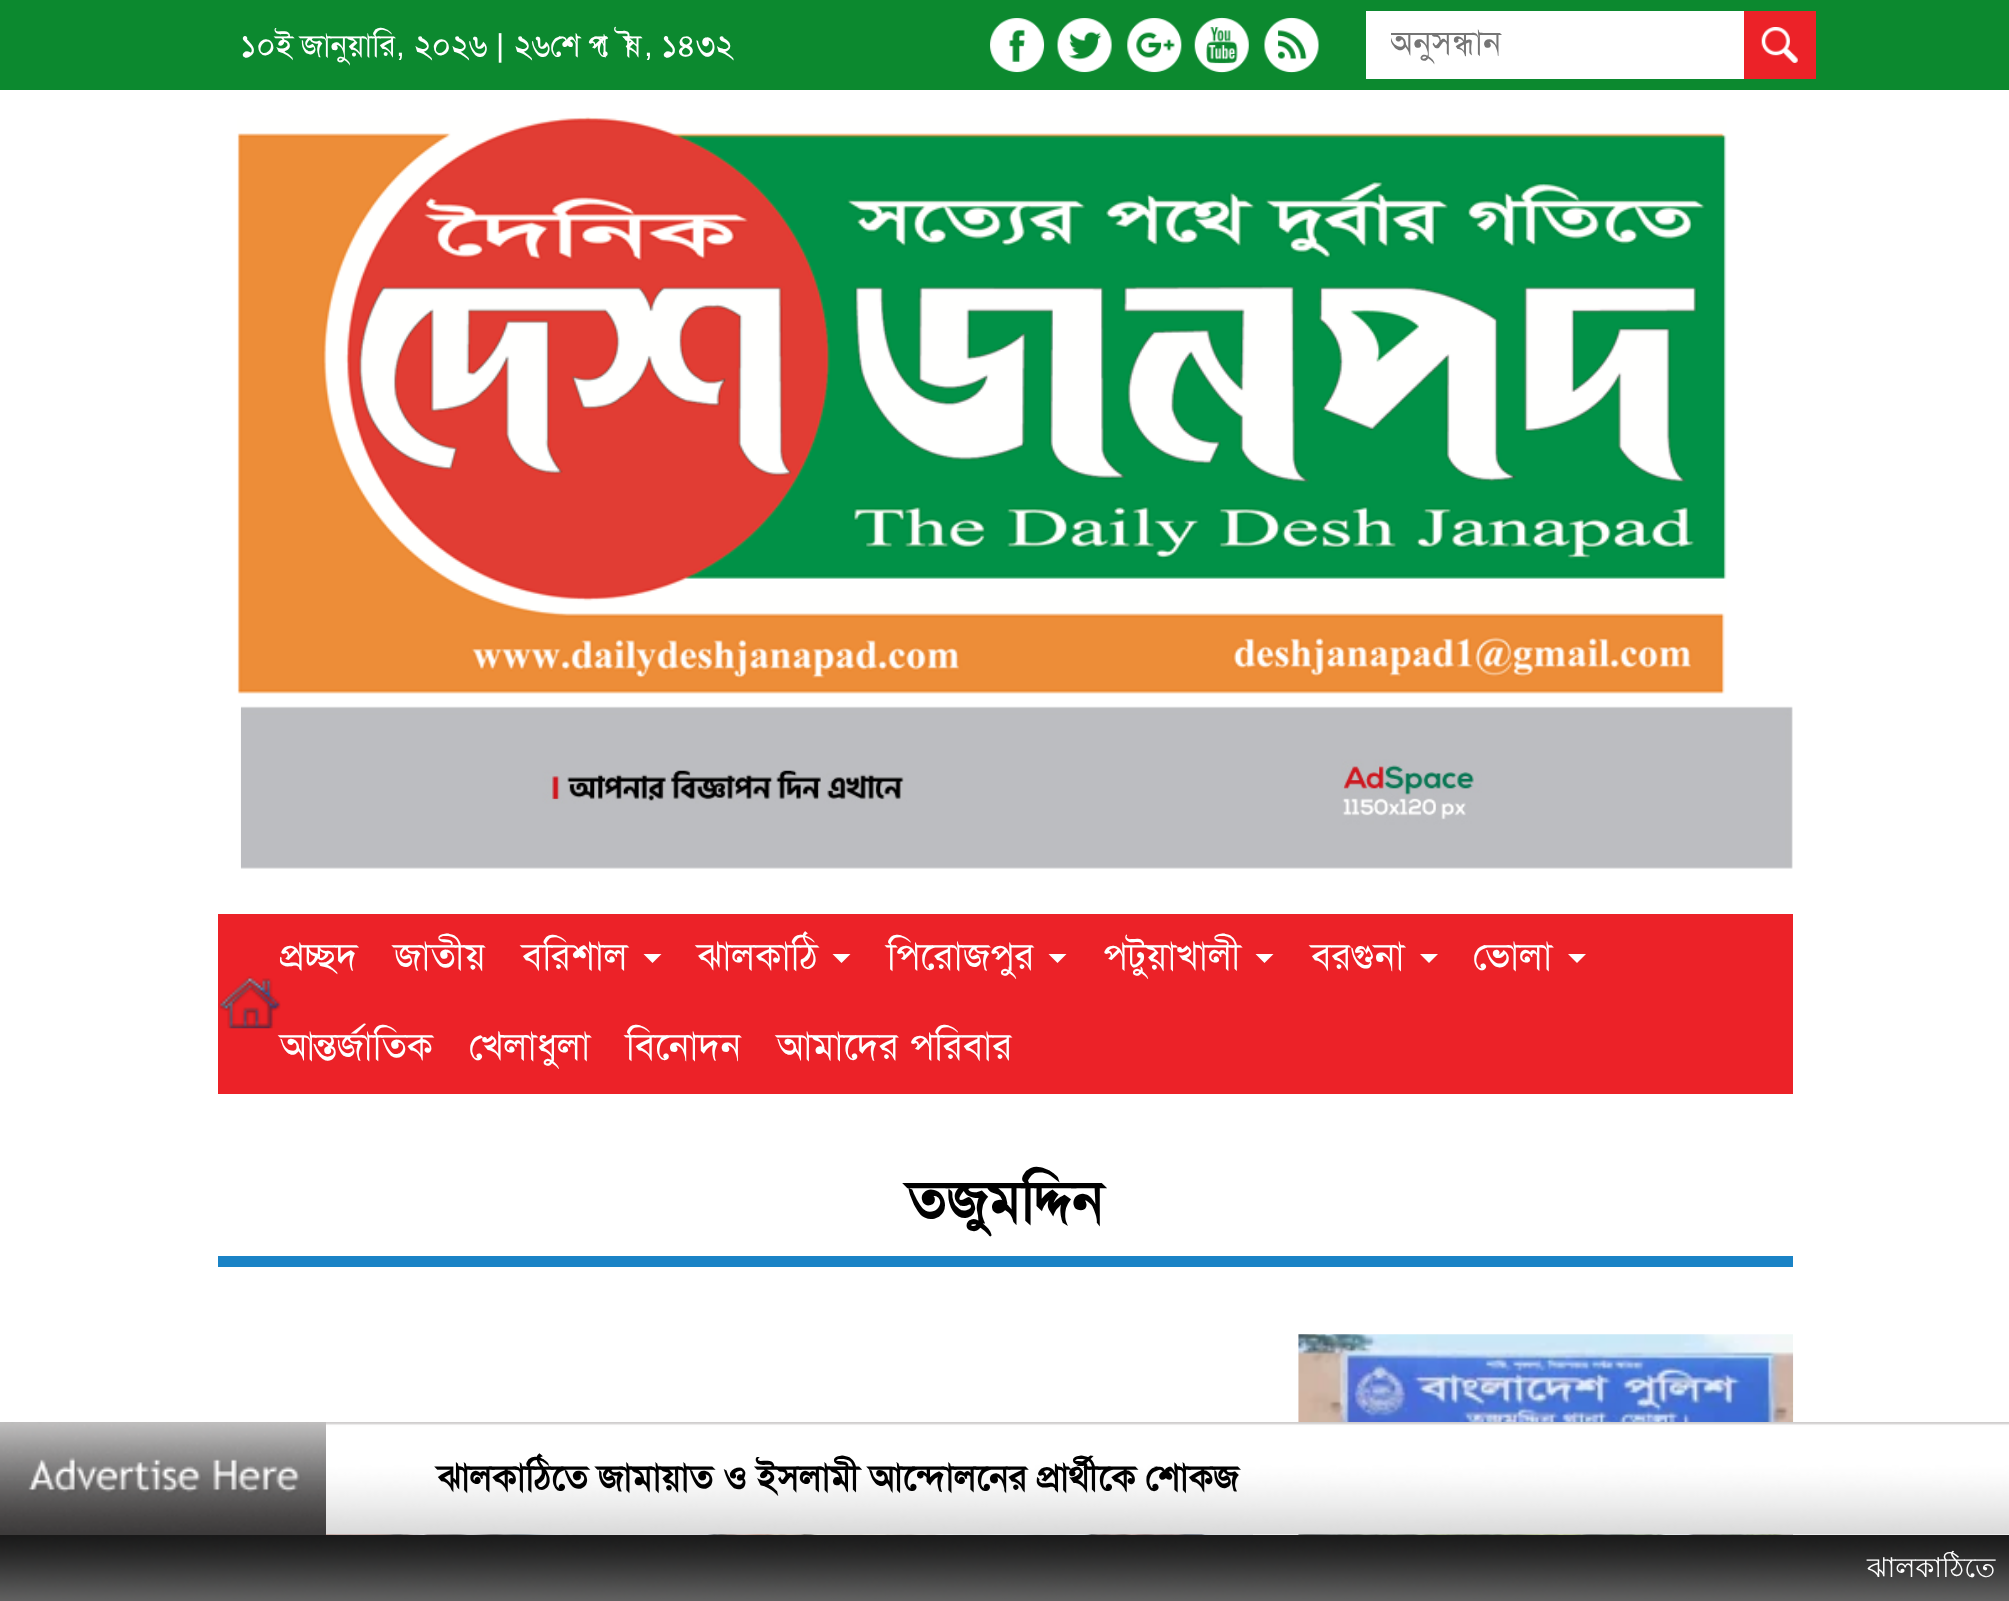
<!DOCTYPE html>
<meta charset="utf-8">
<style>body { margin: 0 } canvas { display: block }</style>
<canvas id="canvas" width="2009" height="1601"></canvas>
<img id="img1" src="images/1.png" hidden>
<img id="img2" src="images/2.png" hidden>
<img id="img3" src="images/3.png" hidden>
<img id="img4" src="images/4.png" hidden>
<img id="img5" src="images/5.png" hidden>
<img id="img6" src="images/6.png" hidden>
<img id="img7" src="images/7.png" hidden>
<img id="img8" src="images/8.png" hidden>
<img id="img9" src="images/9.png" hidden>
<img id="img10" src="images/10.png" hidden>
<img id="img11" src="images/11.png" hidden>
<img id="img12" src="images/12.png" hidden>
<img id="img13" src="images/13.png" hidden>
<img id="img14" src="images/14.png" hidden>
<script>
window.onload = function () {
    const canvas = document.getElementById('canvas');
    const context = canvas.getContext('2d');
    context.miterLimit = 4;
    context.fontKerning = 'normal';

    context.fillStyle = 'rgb(255, 255, 255)';
    context.fillRect(0, 0, 2009, 1601);
    context.fillStyle = 'rgb(12, 137, 47)';
    context.fillRect(0, 0, 2009, 90);
    context.drawImage(document.getElementById('img1'), 990, 18, 55, 55);
    context.drawImage(document.getElementById('img2'), 1057, 18, 55, 55);
    context.drawImage(document.getElementById('img3'), 1127, 18, 55, 55);
    context.drawImage(document.getElementById('img4'), 1194, 17, 55, 56);
    context.drawImage(document.getElementById('img5'), 1264, 17, 55, 56);
    context.fillStyle = 'rgb(255, 255, 255)';
    context.fillRect(1366, 11, 450, 68);
    context.fillStyle = 'rgb(236, 34, 40)';
    context.beginPath();
    context.roundRect(1744, 11, 72, 68, 2);
    context.fill();
    context.drawImage(document.getElementById('img6'), 1761, 27, 37, 36);
    context.beginPath();
    context.rect(1746.5, 13.5, 67, 63);
    context.strokeStyle = 'rgb(236, 34, 40)';
    context.lineWidth = 5;
    context.stroke();
    context.drawImage(document.getElementById('img7'), 237, 117, 1490, 577);
    context.drawImage(document.getElementById('img8'), 240, 706, 1553, 163);
    context.fillRect(218, 914, 1575, 180);
    context.drawImage(document.getElementById('img9'), 218, 976, 63, 53);
    context.fillStyle = 'rgb(255, 255, 255)';
    context.beginPath();
    context.moveTo(643.5, 954);
    context.lineTo(661.5, 954);
    context.lineTo(652.5, 963);
    context.closePath();
    context.fill();
    context.beginPath();
    context.moveTo(832.5, 954);
    context.lineTo(850.5, 954);
    context.lineTo(841.5, 963);
    context.closePath();
    context.fill();
    context.beginPath();
    context.moveTo(1048.5, 954);
    context.lineTo(1066.5, 954);
    context.lineTo(1057.5, 963);
    context.closePath();
    context.fill();
    context.beginPath();
    context.moveTo(1255.5, 954);
    context.lineTo(1273.5, 954);
    context.lineTo(1264.5, 963);
    context.closePath();
    context.fill();
    context.beginPath();
    context.moveTo(1420, 954);
    context.lineTo(1438, 954);
    context.lineTo(1429, 963);
    context.closePath();
    context.fill();
    context.beginPath();
    context.moveTo(1568, 954);
    context.lineTo(1586, 954);
    context.lineTo(1577, 963);
    context.closePath();
    context.fill();
    context.fillStyle = 'rgb(26, 131, 198)';
    context.fillRect(218, 1256, 1575, 11);
    context.drawImage(document.getElementById('img10'), 326, 1534, 927, 1);
    context.drawImage(document.getElementById('img11'), 1298, 1334, 496, 201);
    context.drawImage(document.getElementById('img12'), 326, 1422, 1683, 113);
    context.drawImage(document.getElementById('img13'), 0, 1422, 326, 113);
    context.drawImage(document.getElementById('img14'), 0, 1535, 2009, 66);
    context.font = '31.5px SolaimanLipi';
    context.fillStyle = 'rgb(255, 255, 255)';
    context.fillText('১০ই জানুয়ারি', 240, 56);
    context.font = '31.5px Liberation Sans';
    context.fillText(',', 396, 56);
    context.font = '31.5px SolaimanLipi';
    context.fillText('২০২৬', 414, 56);
    context.font = '31.5px Liberation Sans';
    context.fillText('|', 496, 56);
    context.font = '31.5px SolaimanLipi';
    context.fillText('২৬শে পৌষ', 514, 56);
    context.font = '31.5px Liberation Sans';
    context.fillText(',', 644, 56);
    context.font = '31.5px SolaimanLipi';
    context.fillText('১৪৩২', 661, 56);
    context.save();
    context.beginPath();
    context.rect(1391, 23, 324, 42);
    context.clip();
    context.font = '34px SolaimanLipi';
    context.fillStyle = 'rgb(117, 117, 117)';
    context.fillText('অনুসন্ধান', 1389, 54);
    context.restore();
    context.font = '38.25px SolaimanLipi';
    context.fillText('প্রচ্ছদ', 280, 969);
    context.fillText('জাতীয়', 394, 969);
    context.fillText('বরিশাল', 522, 969);
    context.fillText('ঝালকাঠি', 697, 969);
    context.fillText('পিরোজপুর', 887, 969);
    context.fillText('পটুয়াখালী', 1103, 969);
    context.fillText('বরগুনা', 1311, 969);
    context.fillText('ভোলা', 1473, 969);
    context.fillText('আন্তর্জাতিক', 280, 1059);
    context.fillText('খেলাধুলা', 469, 1059);
    context.fillText('বিনোদন', 626, 1059);
    context.wordSpacing = '2px';
    context.fillText('আমাদের পরিবার', 777, 1059);
    context.wordSpacing = '0px';
    context.font = 'bold 58.5px SolaimanLipi';
    context.fillStyle = 'rgb(0, 0, 0)';
    context.fillText('তজুমদ্দিন', 907, 1221);
    context.wordSpacing = '1.5px';
    context.font = 'bold 36px SolaimanLipi';
    context.fillText('ঝালকাঠিতে জামায়াত ও ইসলামী আন্দোলনের প্রার্থীকে শোকজ', 437, 1490);
    context.wordSpacing = '-1px';
    context.font = '27px Lohit Bengali';
    context.fillStyle = 'rgb(255, 255, 255)';
    context.fillText('ঝালকাঠিতে', 1867, 1577);
};
</script>
